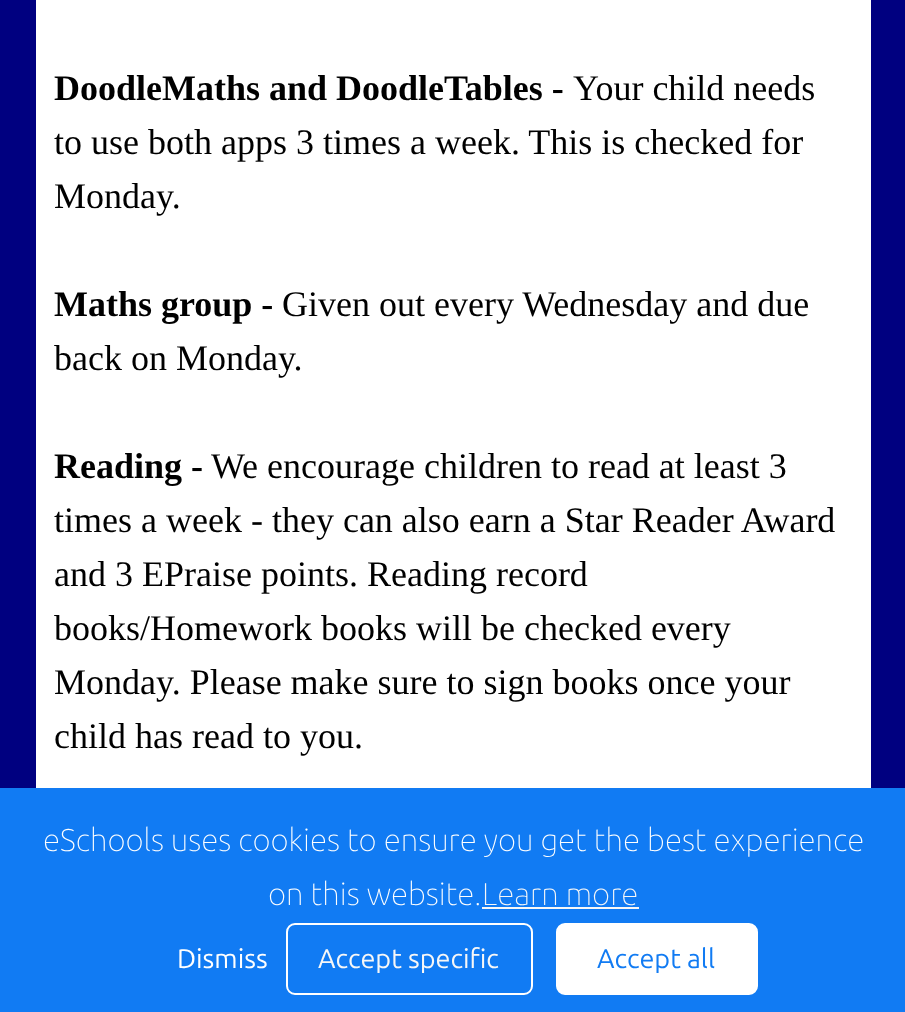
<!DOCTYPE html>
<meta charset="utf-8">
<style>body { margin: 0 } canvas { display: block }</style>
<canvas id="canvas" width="905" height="1012"></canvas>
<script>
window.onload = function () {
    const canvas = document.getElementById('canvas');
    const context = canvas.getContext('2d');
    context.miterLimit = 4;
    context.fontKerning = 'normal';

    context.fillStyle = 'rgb(0, 0, 128)';
    context.fillRect(0, 0, 905, 1012);
    context.fillStyle = 'rgb(255, 255, 255)';
    context.fillRect(36, 0, 835, 788);
    context.fillStyle = 'rgb(17, 123, 243)';
    context.fillRect(0, 788, 905, 224);
    context.fillStyle = 'rgb(247, 247, 247)';
    context.fillRect(482, 907, 157, 2);
    context.beginPath();
    context.roundRect(287, 924, 245, 70, 8);
    context.strokeStyle = 'rgb(255, 255, 255)';
    context.lineWidth = 2;
    context.stroke();
    context.fillStyle = 'rgb(255, 255, 255)';
    context.beginPath();
    context.roundRect(557, 924, 200, 70, 8);
    context.fill();
    context.stroke();
    context.font = 'bold 36px Liberation Serif';
    context.fillStyle = 'rgb(0, 0, 0)';
    context.fillText('DoodleMaths and DoodleTables -', 54, 100);
    context.font = '36px Liberation Serif';
    context.fillText('Your child needs', 573, 100);
    context.fillText('to use both apps 3 times a week. This is checked for', 54, 154);
    context.fillText('Monday.', 54, 208);
    context.font = 'bold 36px Liberation Serif';
    context.fillText('Maths group -', 54, 316);
    context.font = '36px Liberation Serif';
    context.fillText('Given out every Wednesday and due', 282, 316);
    context.fillText('back on Monday.', 54, 370);
    context.font = 'bold 36px Liberation Serif';
    context.fillText('Reading -', 54, 478);
    context.font = '36px Liberation Serif';
    context.fillText('We encourage children to read at least 3', 211, 478);
    context.fillText('times a week - they can also earn a Star Reader Award', 54, 532);
    context.fillText('and 3 EPraise points. Reading record', 54, 586);
    context.fillText('books/Homework books will be checked every', 54, 640);
    context.fillText('Monday. Please make sure to sign books once your', 54, 694);
    context.fillText('child has read to you.', 54, 748);
    context.font = '100 31.5px Ubuntu';
    context.fillStyle = 'rgb(255, 255, 255)';
    context.fillText('eSchools uses cookies to ensure you get the best experience', 43, 851);
    context.fillText('on this website.', 268, 905);
    context.fillStyle = 'rgb(247, 247, 247)';
    context.fillText('Learn more', 482, 905);
    context.font = '27px Ubuntu';
    context.fillStyle = 'rgb(255, 255, 255)';
    context.fillText('Dismiss', 177, 968);
    context.fillStyle = 'rgb(247, 247, 247)';
    context.fillText('Accept specific', 318, 968);
    context.fillStyle = 'rgb(17, 123, 243)';
    context.fillText('Accept all', 597, 968);
};
</script>
